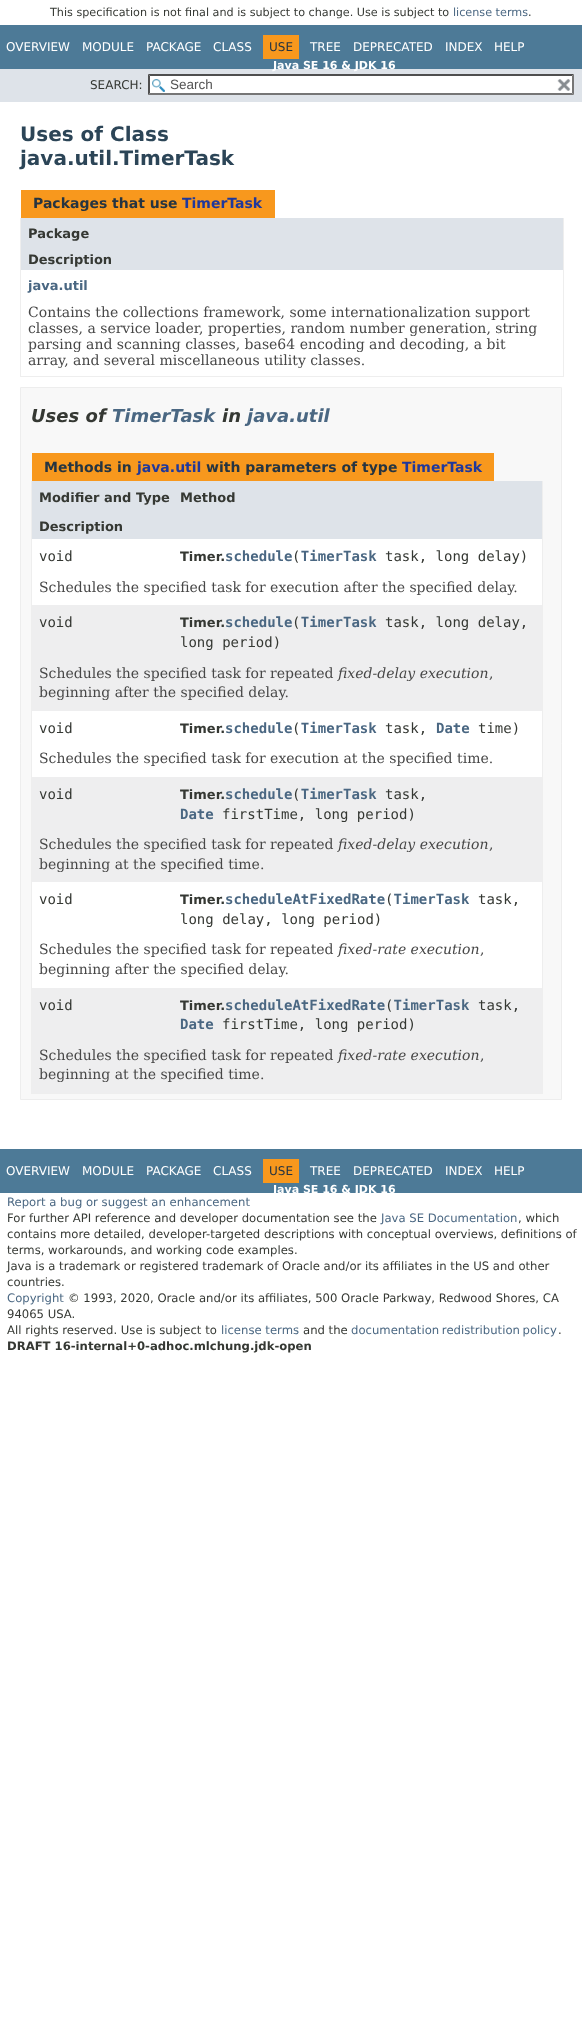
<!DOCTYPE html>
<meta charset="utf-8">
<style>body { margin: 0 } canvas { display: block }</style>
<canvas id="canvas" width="582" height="2030"></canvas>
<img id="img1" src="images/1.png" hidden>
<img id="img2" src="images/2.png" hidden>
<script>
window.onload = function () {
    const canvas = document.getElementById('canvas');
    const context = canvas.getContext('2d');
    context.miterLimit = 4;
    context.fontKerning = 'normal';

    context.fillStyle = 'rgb(255, 255, 255)';
    context.fillRect(0, 0, 582, 2030);
    context.fillStyle = 'rgb(77, 122, 151)';
    context.fillRect(0, 25, 582, 44);
    context.fillStyle = 'rgb(248, 152, 29)';
    context.fillRect(263, 35, 36, 24);
    context.fillStyle = 'rgb(222, 227, 233)';
    context.fillRect(0, 69, 582, 33);
    context.fillStyle = 'rgb(255, 255, 255)';
    context.fillRect(148, 74, 426, 21);
    context.drawImage(document.getElementById('img1'), 152, 79, 13, 13);
    context.fillStyle = 'rgb(79, 79, 79)';
    context.beginPath();
    context.moveTo(148, 74);
    context.lineTo(574, 74);
    context.lineTo(572, 76);
    context.lineTo(150, 76);
    context.closePath();
    context.fill();
    context.fillStyle = 'rgb(118, 118, 118)';
    context.beginPath();
    context.moveTo(574, 74);
    context.lineTo(574, 95);
    context.lineTo(572, 93);
    context.lineTo(572, 76);
    context.closePath();
    context.fill();
    context.beginPath();
    context.moveTo(574, 95);
    context.lineTo(148, 95);
    context.lineTo(150, 93);
    context.lineTo(572, 93);
    context.closePath();
    context.fill();
    context.fillStyle = 'rgb(79, 79, 79)';
    context.beginPath();
    context.moveTo(148, 95);
    context.lineTo(148, 74);
    context.lineTo(150, 76);
    context.lineTo(150, 93);
    context.closePath();
    context.fill();
    context.drawImage(document.getElementById('img2'), 557, 79, 14, 12);
    context.fillStyle = 'rgb(248, 152, 29)';
    context.fillRect(21, 190, 254, 28);
    context.fillStyle = 'rgb(238, 238, 238)';
    context.fillRect(563, 218, 1, 159);
    context.fillRect(20, 376, 544, 1);
    context.fillRect(20, 218, 1, 159);
    context.fillStyle = 'rgb(222, 227, 233)';
    context.fillRect(21, 218, 542, 52);
    context.fillStyle = 'rgb(248, 248, 248)';
    context.beginPath();
    context.rect(20.5, 387.5, 541, 712);
    context.fill();
    context.strokeStyle = 'rgb(237, 237, 237)';
    context.stroke();
    context.fillStyle = 'rgb(248, 152, 29)';
    context.fillRect(32, 453, 462, 28);
    context.fillStyle = 'rgb(238, 238, 238)';
    context.fillRect(542, 481, 1, 613);
    context.fillRect(31, 1093, 512, 1);
    context.fillRect(31, 481, 1, 613);
    context.fillStyle = 'rgb(222, 227, 233)';
    context.fillRect(32, 481, 510, 29);
    context.fillRect(32, 510, 510, 29);
    context.fillStyle = 'rgb(255, 255, 255)';
    context.fillRect(32, 539, 510, 31);
    context.fillRect(32, 570, 510, 35);
    context.fillStyle = 'rgb(238, 238, 239)';
    context.fillRect(32, 605, 510, 51);
    context.fillRect(32, 656, 510, 55);
    context.fillStyle = 'rgb(255, 255, 255)';
    context.fillRect(32, 711, 510, 30);
    context.fillRect(32, 741, 510, 36);
    context.fillStyle = 'rgb(238, 238, 239)';
    context.fillRect(32, 777, 510, 50);
    context.fillRect(32, 827, 510, 55);
    context.fillStyle = 'rgb(255, 255, 255)';
    context.fillRect(32, 882, 510, 50);
    context.fillRect(32, 932, 510, 56);
    context.fillStyle = 'rgb(238, 238, 239)';
    context.fillRect(32, 988, 510, 50);
    context.fillRect(32, 1038, 510, 55);
    context.fillStyle = 'rgb(77, 122, 151)';
    context.fillRect(0, 1149, 582, 44);
    context.fillStyle = 'rgb(248, 152, 29)';
    context.fillRect(263, 1159, 36, 24);
    context.font = '11.2px DejaVu Sans';
    context.fillStyle = 'rgb(53, 56, 51)';
    context.fillText('This specification is not final and is subject to change. Use is subject to', 50, 16);
    context.fillStyle = 'rgb(74, 103, 130)';
    context.fillText('license terms', 453, 16);
    context.fillStyle = 'rgb(53, 56, 51)';
    context.fillText('.', 528, 16);
    context.font = '12px DejaVu Sans';
    context.fillStyle = 'rgb(255, 255, 255)';
    context.fillText('OVERVIEW', 6, 51);
    context.fillText('MODULE', 82, 51);
    context.fillText('PACKAGE', 146, 51);
    context.fillText('CLASS', 213, 51);
    context.fillStyle = 'rgb(37, 52, 65)';
    context.fillText('USE', 269, 51);
    context.fillStyle = 'rgb(255, 255, 255)';
    context.fillText('TREE', 310, 51);
    context.fillText('DEPRECATED', 353, 51);
    context.fillText('INDEX', 445, 51);
    context.fillText('HELP', 494, 51);
    context.font = 'bold 11px DejaVu Sans';
    context.fillText('Java SE 16 & JDK 16', 273, 69);
    context.font = '12px DejaVu Sans';
    context.fillStyle = 'rgb(53, 56, 51)';
    context.fillText('SEARCH:', 90, 89);
    context.font = '13.5px Liberation Sans';
    context.fillStyle = 'rgb(84, 84, 84)';
    context.fillText('Search', 170, 89);
    context.font = 'bold 20px DejaVu Sans';
    context.fillStyle = 'rgb(44, 69, 87)';
    context.fillText('Uses of Class', 20, 141);
    context.fillText('java.util.TimerTask', 20, 165);
    context.font = 'bold 14px DejaVu Sans';
    context.fillStyle = 'rgb(37, 52, 65)';
    context.fillText('Packages that use', 33, 208);
    context.fillStyle = 'rgb(31, 56, 156)';
    context.fillText('TimerTask', 182, 208);
    context.font = 'bold 13px DejaVu Sans';
    context.fillStyle = 'rgb(53, 56, 51)';
    context.fillText('Package', 28, 238);
    context.fillText('Description', 28, 264);
    context.fillStyle = 'rgb(74, 103, 130)';
    context.fillText('java.util', 28, 290);
    context.font = '14px DejaVu Serif';
    context.fillStyle = 'rgb(71, 71, 71)';
    context.fillText('Contains the collections framework, some internationalization support', 28, 317);
    context.fillText('classes, a service loader, properties, random number generation, string', 28, 333);
    context.fillText('parsing and scanning classes, base64 encoding and decoding, a bit', 28, 349);
    context.fillText('array, and several miscellaneous utility classes.', 28, 365);
    context.font = 'italic bold 18px DejaVu Sans';
    context.fillStyle = 'rgb(53, 56, 51)';
    context.fillText('Uses of', 31, 422);
    context.fillStyle = 'rgb(74, 103, 130)';
    context.fillText('TimerTask', 112, 422);
    context.fillStyle = 'rgb(53, 56, 51)';
    context.fillText('in', 222, 422);
    context.fillStyle = 'rgb(74, 103, 130)';
    context.fillText('java.util', 247, 422);
    context.font = 'bold 14px DejaVu Sans';
    context.fillStyle = 'rgb(37, 52, 65)';
    context.fillText('Methods in', 44, 472);
    context.fillStyle = 'rgb(31, 56, 156)';
    context.fillText('java.util', 137, 472);
    context.fillStyle = 'rgb(37, 52, 65)';
    context.fillText('with parameters of type', 206, 472);
    context.fillStyle = 'rgb(31, 56, 156)';
    context.fillText('TimerTask', 402, 472);
    context.font = 'bold 13px DejaVu Sans';
    context.fillStyle = 'rgb(53, 56, 51)';
    context.fillText('Modifier and Type', 39, 502);
    context.fillText('Method', 180, 502);
    context.fillText('Description', 39, 531);
    context.font = '14px DejaVu Sans Mono';
    context.fillText('void', 39, 561);
    context.font = 'bold 14px DejaVu Sans Mono';
    context.fillStyle = 'rgb(74, 103, 130)';
    context.fillText('schedule TimerTask', 225, 561);
    context.font = 'bold 13px DejaVu Sans';
    context.fillStyle = 'rgb(53, 56, 51)';
    context.fillText('Timer.', 180, 561);
    context.font = '14px DejaVu Sans Mono';
    context.fillText('(', 292, 561);
    context.fillText('task, long delay)', 385, 561);
    context.font = '14px DejaVu Serif';
    context.fillStyle = 'rgb(71, 71, 71)';
    context.fillText('Schedules the specified task for execution after the specified delay.', 39, 592);
    context.font = '14px DejaVu Sans Mono';
    context.fillStyle = 'rgb(53, 56, 51)';
    context.fillText('void', 39, 627);
    context.font = 'bold 14px DejaVu Sans Mono';
    context.fillStyle = 'rgb(74, 103, 130)';
    context.fillText('schedule TimerTask', 225, 627);
    context.font = 'bold 13px DejaVu Sans';
    context.fillStyle = 'rgb(53, 56, 51)';
    context.fillText('Timer.', 180, 627);
    context.font = '14px DejaVu Sans Mono';
    context.fillText('(', 292, 627);
    context.fillText('task, long delay,', 385, 627);
    context.fillText('long period)', 180, 647);
    context.font = '14px DejaVu Serif';
    context.fillStyle = 'rgb(71, 71, 71)';
    context.fillText('Schedules the specified task for repeated', 39, 678);
    context.font = 'italic 14px DejaVu Serif';
    context.fillText('fixed-delay execution', 338, 678);
    context.font = '14px DejaVu Serif';
    context.fillText(',', 489, 678);
    context.fillText('beginning after the specified delay.', 39, 697);
    context.font = '14px DejaVu Sans Mono';
    context.fillStyle = 'rgb(53, 56, 51)';
    context.fillText('void', 39, 733);
    context.font = 'bold 14px DejaVu Sans Mono';
    context.fillStyle = 'rgb(74, 103, 130)';
    context.fillText('schedule TimerTask', 225, 733);
    context.font = 'bold 13px DejaVu Sans';
    context.fillStyle = 'rgb(53, 56, 51)';
    context.fillText('Timer.', 180, 733);
    context.font = '14px DejaVu Sans Mono';
    context.fillText('(', 292, 733);
    context.fillText('task,', 385, 733);
    context.font = 'bold 14px DejaVu Sans Mono';
    context.fillStyle = 'rgb(74, 103, 130)';
    context.fillText('Date', 436, 733);
    context.font = '14px DejaVu Sans Mono';
    context.fillStyle = 'rgb(53, 56, 51)';
    context.fillText('time)', 478, 733);
    context.font = '14px DejaVu Serif';
    context.fillStyle = 'rgb(71, 71, 71)';
    context.fillText('Schedules the specified task for execution at the specified time.', 39, 763);
    context.font = '14px DejaVu Sans Mono';
    context.fillStyle = 'rgb(53, 56, 51)';
    context.fillText('void', 39, 799);
    context.font = 'bold 14px DejaVu Sans Mono';
    context.fillStyle = 'rgb(74, 103, 130)';
    context.fillText('schedule TimerTask', 225, 799);
    context.font = 'bold 13px DejaVu Sans';
    context.fillStyle = 'rgb(53, 56, 51)';
    context.fillText('Timer.', 180, 799);
    context.font = '14px DejaVu Sans Mono';
    context.fillText('(', 292, 799);
    context.fillText('task,', 385, 799);
    context.font = 'bold 14px DejaVu Sans Mono';
    context.fillStyle = 'rgb(74, 103, 130)';
    context.fillText('Date', 180, 819);
    context.font = '14px DejaVu Sans Mono';
    context.fillStyle = 'rgb(53, 56, 51)';
    context.fillText('firstTime, long period)', 222, 819);
    context.font = '14px DejaVu Serif';
    context.fillStyle = 'rgb(71, 71, 71)';
    context.fillText('Schedules the specified task for repeated', 39, 849);
    context.font = 'italic 14px DejaVu Serif';
    context.fillText('fixed-delay execution', 338, 849);
    context.font = '14px DejaVu Serif';
    context.fillText(',', 489, 849);
    context.fillText('beginning at the specified time.', 39, 869);
    context.font = '14px DejaVu Sans Mono';
    context.fillStyle = 'rgb(53, 56, 51)';
    context.fillText('void', 39, 904);
    context.font = 'bold 14px DejaVu Sans Mono';
    context.fillStyle = 'rgb(74, 103, 130)';
    context.fillText('scheduleAtFixedRate TimerTask', 225, 904);
    context.font = 'bold 13px DejaVu Sans';
    context.fillStyle = 'rgb(53, 56, 51)';
    context.fillText('Timer.', 180, 904);
    context.font = '14px DejaVu Sans Mono';
    context.fillText('(', 385, 904);
    context.fillText('task,', 478, 904);
    context.fillText('long delay, long period)', 180, 924);
    context.font = '14px DejaVu Serif';
    context.fillStyle = 'rgb(71, 71, 71)';
    context.fillText('Schedules the specified task for repeated', 39, 954);
    context.font = 'italic 14px DejaVu Serif';
    context.fillText('fixed-rate execution', 338, 954);
    context.font = '14px DejaVu Serif';
    context.fillText(',', 480, 954);
    context.fillText('beginning after the specified delay.', 39, 974);
    context.font = '14px DejaVu Sans Mono';
    context.fillStyle = 'rgb(53, 56, 51)';
    context.fillText('void', 39, 1010);
    context.font = 'bold 14px DejaVu Sans Mono';
    context.fillStyle = 'rgb(74, 103, 130)';
    context.fillText('scheduleAtFixedRate TimerTask', 225, 1010);
    context.font = 'bold 13px DejaVu Sans';
    context.fillStyle = 'rgb(53, 56, 51)';
    context.fillText('Timer.', 180, 1010);
    context.font = '14px DejaVu Sans Mono';
    context.fillText('(', 385, 1010);
    context.fillText('task,', 478, 1010);
    context.font = 'bold 14px DejaVu Sans Mono';
    context.fillStyle = 'rgb(74, 103, 130)';
    context.fillText('Date', 180, 1029);
    context.font = '14px DejaVu Sans Mono';
    context.fillStyle = 'rgb(53, 56, 51)';
    context.fillText('firstTime, long period)', 222, 1029);
    context.font = '14px DejaVu Serif';
    context.fillStyle = 'rgb(71, 71, 71)';
    context.fillText('Schedules the specified task for repeated', 39, 1060);
    context.font = 'italic 14px DejaVu Serif';
    context.fillText('fixed-rate execution', 338, 1060);
    context.font = '14px DejaVu Serif';
    context.fillText(',', 480, 1060);
    context.fillText('beginning at the specified time.', 39, 1079);
    context.font = '12px DejaVu Sans';
    context.fillStyle = 'rgb(255, 255, 255)';
    context.fillText('OVERVIEW', 6, 1175);
    context.fillText('MODULE', 82, 1175);
    context.fillText('PACKAGE', 146, 1175);
    context.fillText('CLASS', 213, 1175);
    context.fillStyle = 'rgb(37, 52, 65)';
    context.fillText('USE', 269, 1175);
    context.fillStyle = 'rgb(255, 255, 255)';
    context.fillText('TREE', 310, 1175);
    context.fillText('DEPRECATED', 353, 1175);
    context.fillText('INDEX', 445, 1175);
    context.fillText('HELP', 494, 1175);
    context.save();
    context.beginPath();
    context.rect(0, 1149, 582, 44);
    context.clip();
    context.font = 'bold 11px DejaVu Sans';
    context.fillText('Java SE 16 & JDK 16', 273, 1193);
    context.restore();
    context.font = '11.65px DejaVu Sans';
    context.fillStyle = 'rgb(74, 103, 130)';
    context.fillText('Report a bug or suggest an enhancement', 7, 1206);
    context.fillStyle = 'rgb(53, 56, 51)';
    context.fillText('For further API reference and developer documentation see the', 7, 1222);
    context.fillStyle = 'rgb(74, 103, 130)';
    context.fillText('Java SE Documentation', 381, 1222);
    context.fillStyle = 'rgb(53, 56, 51)';
    context.fillText(', which', 518, 1222);
    context.fillText('contains more detailed, developer-targeted descriptions with conceptual overviews, definitions of', 7, 1238);
    context.fillText('terms, workarounds, and working code examples.', 7, 1254);
    context.fillText('Java is a trademark or registered trademark of Oracle and/or its affiliates in the US and other', 7, 1270);
    context.fillText('countries.', 7, 1286);
    context.fillStyle = 'rgb(74, 103, 130)';
    context.fillText('Copyright', 7, 1302);
    context.fillStyle = 'rgb(53, 56, 51)';
    context.fillText('© 1993, 2020, Oracle and/or its affiliates, 500 Oracle Parkway, Redwood Shores, CA', 68, 1302);
    context.fillText('94065 USA.', 7, 1318);
    context.fillText('All rights reserved. Use is subject to', 7, 1334);
    context.fillStyle = 'rgb(74, 103, 130)';
    context.fillText('license terms', 221, 1334);
    context.fillStyle = 'rgb(53, 56, 51)';
    context.fillText('and the', 303, 1334);
    context.wordSpacing = '-1px';
    context.fillStyle = 'rgb(74, 103, 130)';
    context.fillText('documentation redistribution policy', 351, 1334);
    context.wordSpacing = '0px';
    context.fillStyle = 'rgb(53, 56, 51)';
    context.fillText('.', 558, 1334);
    context.font = 'bold 11.65px DejaVu Sans';
    context.fillText('DRAFT 16-internal+0-adhoc.mlchung.jdk-open', 7, 1350);
};
</script>
